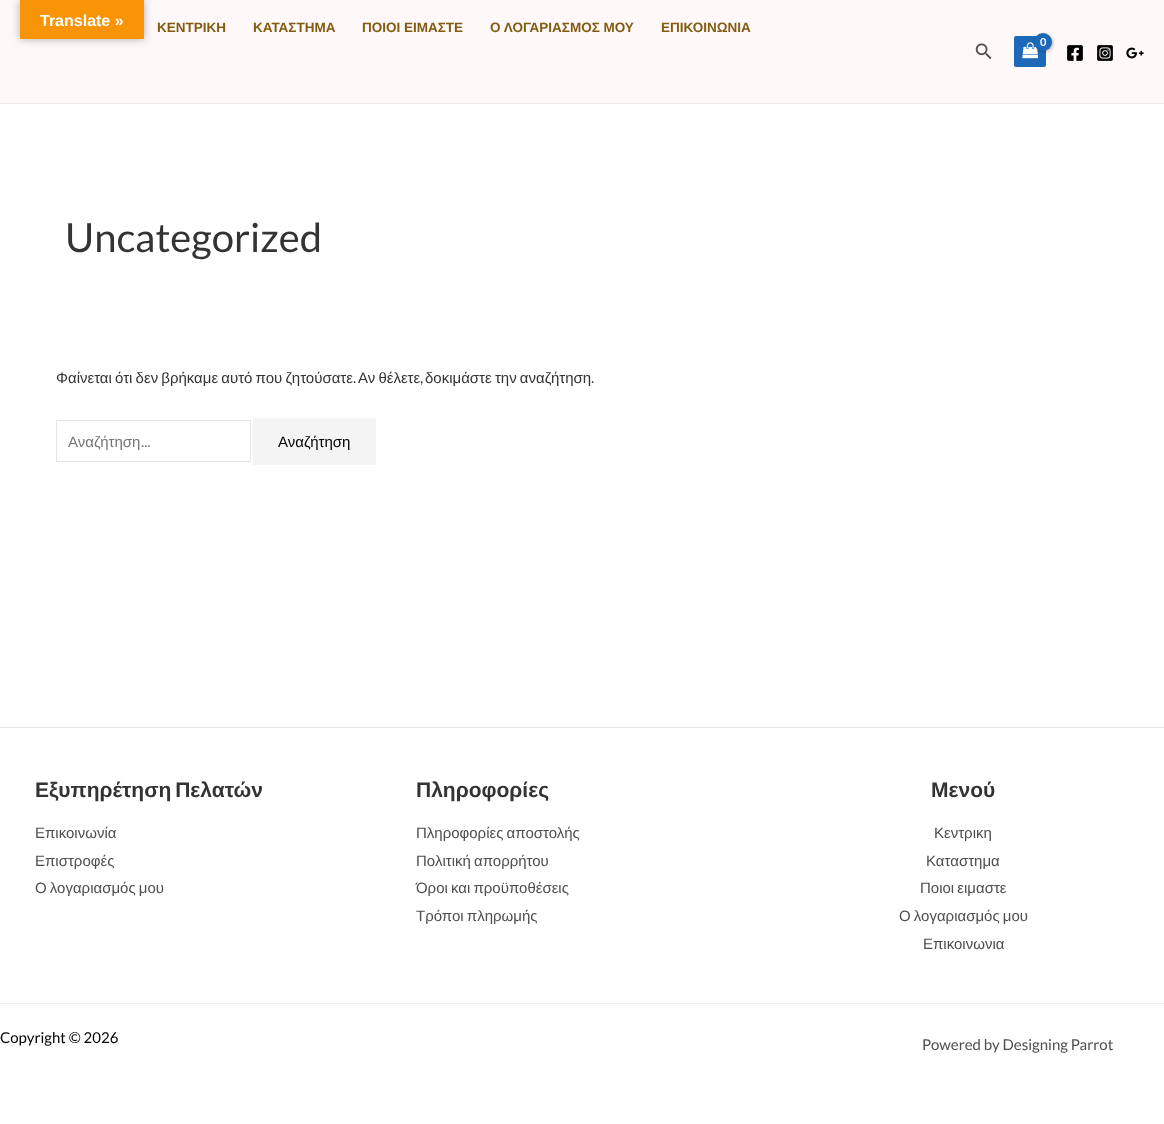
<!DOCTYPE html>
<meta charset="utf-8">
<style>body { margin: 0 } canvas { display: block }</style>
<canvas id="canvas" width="1164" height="1124"></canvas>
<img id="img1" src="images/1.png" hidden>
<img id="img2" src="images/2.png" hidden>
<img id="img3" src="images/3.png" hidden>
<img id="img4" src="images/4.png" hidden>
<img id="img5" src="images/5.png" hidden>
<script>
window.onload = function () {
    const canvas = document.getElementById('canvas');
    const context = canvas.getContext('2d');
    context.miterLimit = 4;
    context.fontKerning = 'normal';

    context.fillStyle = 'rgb(255, 255, 255)';
    context.fillRect(0, 0, 1164, 1124);
    context.fillStyle = 'rgb(255, 248, 248)';
    context.fillRect(0, 0, 1164, 103);
    context.fillStyle = 'rgba(0, 0, 0, 0.3)';
    context.filter = 'blur(4.5px)';
    context.beginPath();
    context.rect(20, 0, 124, 39);
    context.fill();
    context.filter = 'none';
    context.fillStyle = 'rgb(248, 148, 6)';
    context.fillRect(20, 0, 124, 39);
    context.fillStyle = 'rgb(234, 234, 234)';
    context.fillRect(0, 103, 1164, 1);
    context.fillStyle = 'rgb(28, 106, 183)';
    context.beginPath();
    context.roundRect(1014, 36, 32, 31, 2);
    context.fill();
    context.drawImage(document.getElementById('img1'), 1022, 42, 16, 17);
    context.fillStyle = 'rgba(0, 0, 0, 0.3)';
    context.filter = 'blur(1.5px)';
    context.beginPath();
    context.roundRect(1035, 34, 18, 18, 9);
    context.fill();
    context.filter = 'none';
    context.fillStyle = 'rgb(28, 106, 183)';
    context.beginPath();
    context.arc(1043, 42, 9, 0, 2 * Math.PI);
    context.fill();
    context.drawImage(document.getElementById('img2'), 975, 43, 17, 17);
    context.drawImage(document.getElementById('img3'), 1067, 45, 16, 16);
    context.drawImage(document.getElementById('img4'), 1097, 45, 16, 16);
    context.drawImage(document.getElementById('img5'), 1126, 47, 18, 12);
    context.strokeStyle = 'rgb(229, 229, 229)';
    context.strokeRect(56.5, 420.5, 194, 41);
    context.fillStyle = 'rgb(244, 244, 244)';
    context.fillRect(253, 418, 123, 47);
    context.fillStyle = 'rgb(230, 230, 230)';
    context.fillRect(0, 727, 1164, 1);
    context.fillStyle = 'rgb(238, 238, 238)';
    context.fillRect(0, 1003, 1164, 1);
    context.font = 'bold 16px Liberation Sans';
    context.fillStyle = 'rgb(255, 255, 255)';
    context.fillText('Translate »', 40, 26);
    context.font = 'bold 13.5px Liberation Sans';
    context.fillStyle = 'rgb(129, 91, 16)';
    context.fillText('ΚΕΝΤΡΙΚΗ', 157, 32);
    context.fillText('ΚΑΤΑΣΤΗΜΑ', 253, 32);
    context.fillText('ΠΟΙΟΙ ΕΙΜΑΣΤΕ', 362, 32);
    context.fillText('Ο ΛΟΓΑΡΙΑΣΜΟΣ ΜΟΥ', 490, 32);
    context.fillText('ΕΠΙΚΟΙΝΩΝΙΑ', 661, 32);
    context.font = 'bold 11px Lato';
    context.fillStyle = 'rgb(255, 255, 255)';
    context.fillText('0', 1040, 46);
    context.font = '40px Lato';
    context.fillStyle = 'rgb(51, 51, 51)';
    context.fillText('Uncategorized', 65, 252);
    context.wordSpacing = '-1px';
    context.font = '15px Liberation Sans';
    context.fillText('Φαίνεται ότι δεν βρήκαμε αυτό που ζητούσατε', 56, 383);
    context.wordSpacing = '0px';
    context.font = '15px Lato';
    context.fillText('.', 353, 383);
    context.wordSpacing = '-1px';
    context.font = '15px Liberation Sans';
    context.fillText('Αν θέλετε', 358, 383);
    context.wordSpacing = '0px';
    context.font = '15px Lato';
    context.fillText(',', 420, 383);
    context.wordSpacing = '-1px';
    context.font = '15px Liberation Sans';
    context.fillText('δοκιμάστε την αναζήτηση', 425, 383);
    context.wordSpacing = '0px';
    context.font = '15px Lato';
    context.fillText('.', 591, 383);
    context.save();
    context.beginPath();
    context.rect(68, 432, 166, 18);
    context.clip();
    context.font = '15px Liberation Sans';
    context.fillStyle = 'rgb(117, 117, 117)';
    context.fillText('Αναζήτηση', 68, 447);
    context.restore();
    context.fillStyle = 'rgb(117, 117, 117)';
    context.fillText('...', 141, 447);
    context.font = '15px Liberation Sans';
    context.fillStyle = 'rgb(0, 0, 0)';
    context.fillText('Αναζήτηση', 278, 447);
    context.wordSpacing = '-2px';
    context.font = 'bold 21px Liberation Sans';
    context.fillStyle = 'rgb(51, 51, 51)';
    context.fillText('Εξυπηρέτηση Πελατών', 35, 797);
    context.wordSpacing = '0px';
    context.font = '15px Liberation Sans';
    context.fillStyle = 'rgb(78, 78, 78)';
    context.fillText('Επικοινωνία', 35, 838);
    context.fillText('Επιστροφές', 35, 866);
    context.wordSpacing = '-1px';
    context.fillText('Ο λογαριασμός μου', 35, 893);
    context.wordSpacing = '0px';
    context.font = 'bold 21px Liberation Sans';
    context.fillStyle = 'rgb(51, 51, 51)';
    context.fillText('Πληροφορίες', 416, 797);
    context.wordSpacing = '-1px';
    context.font = '15px Liberation Sans';
    context.fillStyle = 'rgb(78, 78, 78)';
    context.fillText('Πληροφορίες αποστολής', 416, 838);
    context.fillText('Πολιτική απορρήτου', 416, 866);
    context.fillText('Όροι και προϋποθέσεις', 416, 893);
    context.fillText('Τρόποι πληρωμής', 416, 921);
    context.wordSpacing = '0px';
    context.font = 'bold 21px Liberation Sans';
    context.fillStyle = 'rgb(51, 51, 51)';
    context.fillText('Μενού', 931, 797);
    context.font = '15px Liberation Sans';
    context.fillStyle = 'rgb(78, 78, 78)';
    context.fillText('Κεντρικη', 934, 838);
    context.fillText('Καταστημα', 926, 866);
    context.wordSpacing = '-1px';
    context.fillText('Ποιοι ειμαστε', 920, 893);
    context.fillText('Ο λογαριασμός μου', 899, 921);
    context.wordSpacing = '0px';
    context.fillText('Επικοινωνια', 923, 949);
    context.font = '15px Lato';
    context.fillStyle = 'rgb(0, 0, 0)';
    context.fillText('Copyright © 2026', 0, 1043);
    context.fillStyle = 'rgb(78, 78, 78)';
    context.fillText('Powered by Designing Parrot', 922, 1050);
};
</script>
